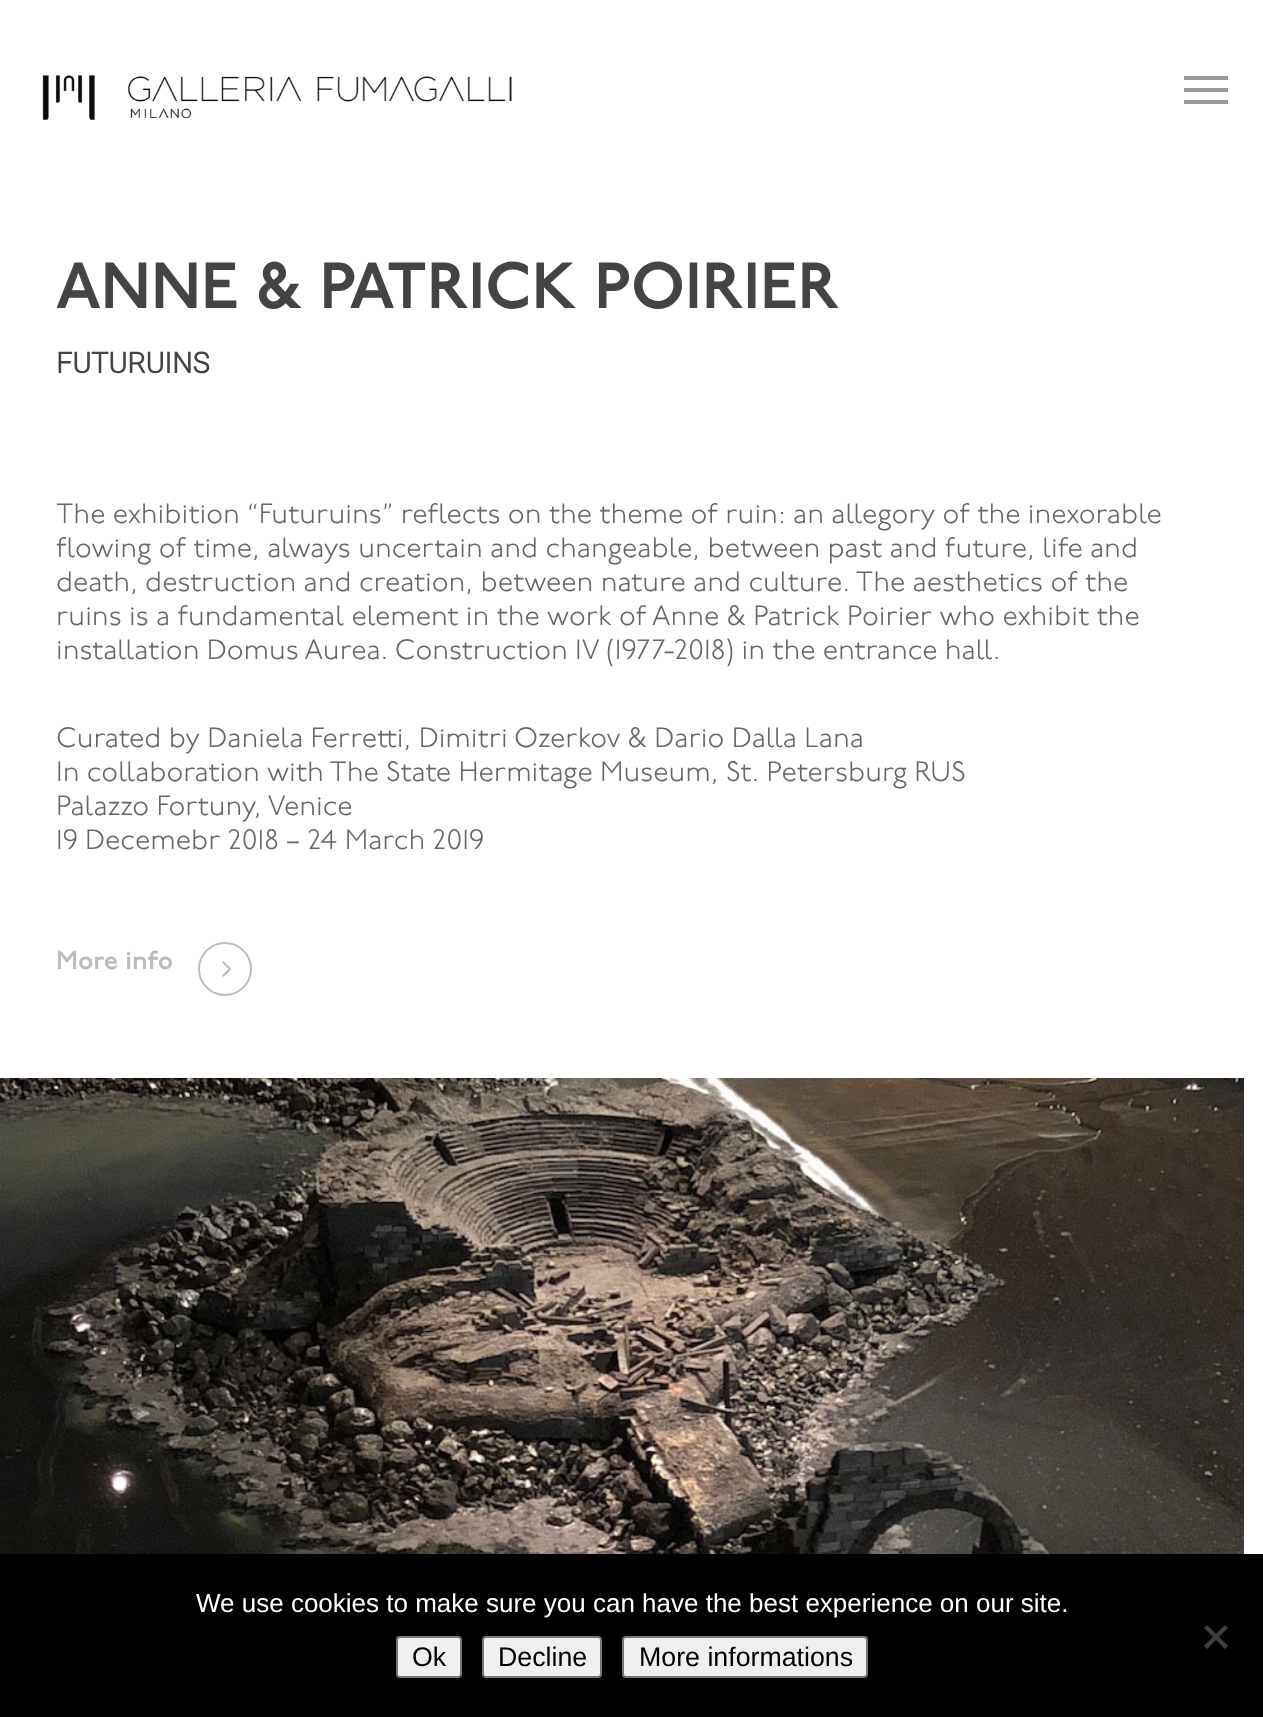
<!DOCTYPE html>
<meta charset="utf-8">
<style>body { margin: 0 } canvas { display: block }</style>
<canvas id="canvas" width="1263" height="1717"></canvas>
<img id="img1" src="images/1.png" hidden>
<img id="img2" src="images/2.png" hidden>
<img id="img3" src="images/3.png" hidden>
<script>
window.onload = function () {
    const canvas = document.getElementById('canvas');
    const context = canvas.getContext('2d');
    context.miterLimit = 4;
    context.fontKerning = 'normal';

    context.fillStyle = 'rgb(255, 255, 255)';
    context.fillRect(0, 0, 1263, 1717);
    context.drawImage(document.getElementById('img1'), 42, 75, 470, 45);
    context.fillStyle = 'rgb(153, 153, 153)';
    context.fillRect(1184, 76, 44, 4);
    context.fillRect(1184, 100, 44, 4);
    context.fillRect(1184, 88, 44, 4);
    context.drawImage(document.getElementById('img2'), 222, 961, 10, 16);
    context.beginPath();
    context.arc(225, 969, 26, 0, 2 * Math.PI);
    context.strokeStyle = 'rgb(188, 188, 188)';
    context.lineWidth = 2;
    context.stroke();
    context.drawImage(document.getElementById('img3'), 0, 1078, 1244, 476);
    context.fillStyle = 'rgb(0, 0, 0)';
    context.fillRect(0, 1554, 1263, 163);
    context.fillStyle = 'rgb(64, 64, 64)';
    context.beginPath();
    context.moveTo(1225, 1625);
    context.lineTo(1228, 1628);
    context.lineTo(1207, 1649);
    context.lineTo(1204, 1646);
    context.closePath();
    context.fill();
    context.beginPath();
    context.moveTo(1204, 1628);
    context.lineTo(1207, 1625);
    context.lineTo(1228, 1646);
    context.lineTo(1225, 1649);
    context.closePath();
    context.fill();
    context.fillStyle = 'rgb(239, 239, 239)';
    context.beginPath();
    context.roundRect(397, 1637, 64, 40, 3);
    context.fill();
    context.strokeStyle = 'rgb(118, 118, 118)';
    context.stroke();
    context.beginPath();
    context.roundRect(483, 1637, 118, 40, 3);
    context.fill();
    context.stroke();
    context.beginPath();
    context.roundRect(623, 1637, 244, 40, 3);
    context.fill();
    context.stroke();
    context.font = '600 65px "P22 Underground"';
    context.fillStyle = 'rgb(68, 68, 68)';
    context.fillText('ANNE & PATRICK POIRIER', 56, 308);
    context.font = 'bold 28.75px Roboto';
    context.fillText('FUTURUINS', 56, 373);
    context.font = '300 28px "P22 Underground"';
    context.fillStyle = 'rgb(103, 103, 103)';
    context.fillText('The exhibition “Futuruins” reflects on the theme of ruin: an allegory of the inexorable', 56, 523);
    context.fillText('flowing of time, always uncertain and changeable, between past and future, life and', 56, 557);
    context.fillText('death, destruction and creation, between nature and culture. The aesthetics of the', 56, 591);
    context.fillText('ruins is a fundamental element in the work of Anne & Patrick Poirier who exhibit the', 56, 625);
    context.fillText('installation Domus Aurea. Construction IV (1977-2018) in the entrance hall.', 56, 659);
    context.fillText('Curated by Daniela Ferretti, Dimitri Ozerkov & Dario Dalla Lana', 56, 747);
    context.fillText('In collaboration with The State Hermitage Museum, St. Petersburg RUS', 56, 781);
    context.fillText('Palazzo Fortuny, Venice', 56, 815);
    context.fillText('19 Decemebr 2018 – 24 March 2019', 56, 849);
    context.font = '600 26px "P22 Underground"';
    context.fillStyle = 'rgb(188, 188, 188)';
    context.fillText('More info', 56, 969);
    context.font = '26px Liberation Sans';
    context.fillStyle = 'rgb(255, 255, 255)';
    context.fillText('We use cookies to make sure you can have the best experience on our site.', 196, 1612);
    context.font = '26.75px Liberation Sans';
    context.fillStyle = 'rgb(0, 0, 0)';
    context.fillText('Ok', 412, 1666);
    context.fillText('Decline', 498, 1666);
    context.fillText('More informations', 639, 1666);
};
</script>
